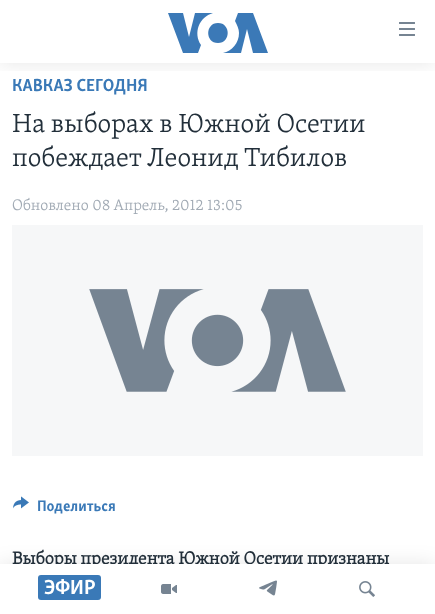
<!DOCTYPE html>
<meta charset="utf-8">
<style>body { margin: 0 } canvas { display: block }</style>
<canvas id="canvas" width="435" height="614"></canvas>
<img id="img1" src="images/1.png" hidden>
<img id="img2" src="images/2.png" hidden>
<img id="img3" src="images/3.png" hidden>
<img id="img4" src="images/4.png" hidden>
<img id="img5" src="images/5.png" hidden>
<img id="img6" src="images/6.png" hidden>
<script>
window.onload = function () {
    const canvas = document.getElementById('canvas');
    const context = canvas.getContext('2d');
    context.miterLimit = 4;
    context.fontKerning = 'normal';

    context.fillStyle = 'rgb(255, 255, 255)';
    context.fillRect(0, 0, 435, 614);
    context.fillStyle = 'rgb(246, 247, 248)';
    context.fillRect(12, 225, 411, 231);
    context.drawImage(document.getElementById('img1'), 89, 289, 257, 103);
    context.drawImage(document.getElementById('img2'), 13, 496, 16, 13);
    context.save();
    context.beginPath();
    context.rect(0, 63, 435, 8);
    context.clip();
    context.fillStyle = 'rgba(0, 0, 0, 0.1)';
    context.filter = 'blur(10px)';
    context.beginPath();
    context.rect(0, 0, 435, 63);
    context.fill();
    context.filter = 'none';
    context.restore();
    context.fillStyle = 'rgb(59, 121, 183)';
    context.beginPath();
    context.moveTo(201, 45);
    context.lineTo(198, 53);
    context.lineTo(183, 53);
    context.lineTo(168, 13);
    context.lineTo(183, 13);
    context.lineTo(189, 37);
    context.lineTo(195, 13);
    context.lineTo(213, 13);
    context.bezierCurveTo(199, 17, 193, 33, 201, 45);
    context.closePath();
    context.moveTo(218, 23);
    context.bezierCurveTo(205, 23, 205, 43, 218, 43);
    context.bezierCurveTo(231, 43, 231, 23, 218, 23);
    context.closePath();
    context.moveTo(239, 33);
    context.bezierCurveTo(239, 43, 232, 51, 223, 53);
    context.lineTo(241, 53);
    context.lineTo(247, 29);
    context.lineTo(253, 53);
    context.lineTo(268, 53);
    context.lineTo(253, 13);
    context.lineTo(238, 13);
    context.lineTo(235, 21);
    context.bezierCurveTo(237, 25, 239, 29, 239, 33);
    context.closePath();
    context.fill();
    context.drawImage(document.getElementById('img3'), 399, 22, 16, 14);
    context.fillStyle = 'rgba(0, 0, 0, 0.1)';
    context.filter = 'blur(10px)';
    context.beginPath();
    context.rect(0, 564, 435, 50);
    context.fill();
    context.filter = 'none';
    context.font = 'bold 18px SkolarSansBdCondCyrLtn';
    context.fillStyle = 'rgb(58, 121, 183)';
    context.fillText('КАВКАЗ СЕГОДНЯ', 12, 91);
    context.font = '300 27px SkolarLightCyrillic';
    context.fillStyle = 'rgb(34, 47, 58)';
    context.fillText('На выборах в Южной Осетии', 12, 132);
    context.fillText('побеждает Леонид Тибилов', 12, 166);
    context.font = '300 15.75px SkolarLightCyrillic';
    context.fillStyle = 'rgb(161, 170, 180)';
    context.fillText('Обновлено 08 Апрель, 2012 13:05', 12, 210);
    context.font = 'bold 15.75px SkolarSansBdCondCyrLtn';
    context.fillStyle = 'rgb(58, 121, 183)';
    context.fillText('Поделиться', 37, 511);
    context.font = 'bold 18px SkolarLightCyrillic';
    context.fillStyle = 'rgb(34, 47, 58)';
    context.fillText('Выборы президента Южной Осетии признаны', 12, 564);
    context.fillStyle = 'rgb(255, 255, 255)';
    context.fillRect(0, 564, 435, 50);
    context.fillStyle = 'rgb(58, 121, 183)';
    context.beginPath();
    context.roundRect(38, 575, 63, 25, 3);
    context.fill();
    context.font = 'bold 21px SkolarSansBdCondCyrLtn';
    context.fillStyle = 'rgb(255, 255, 255)';
    context.fillText('ЭФИР', 44, 594);
    context.drawImage(document.getElementById('img4'), 161, 584, 16, 10);
    context.drawImage(document.getElementById('img5'), 259, 580, 18, 16);
    context.drawImage(document.getElementById('img6'), 359, 581, 16, 16);
};
</script>
